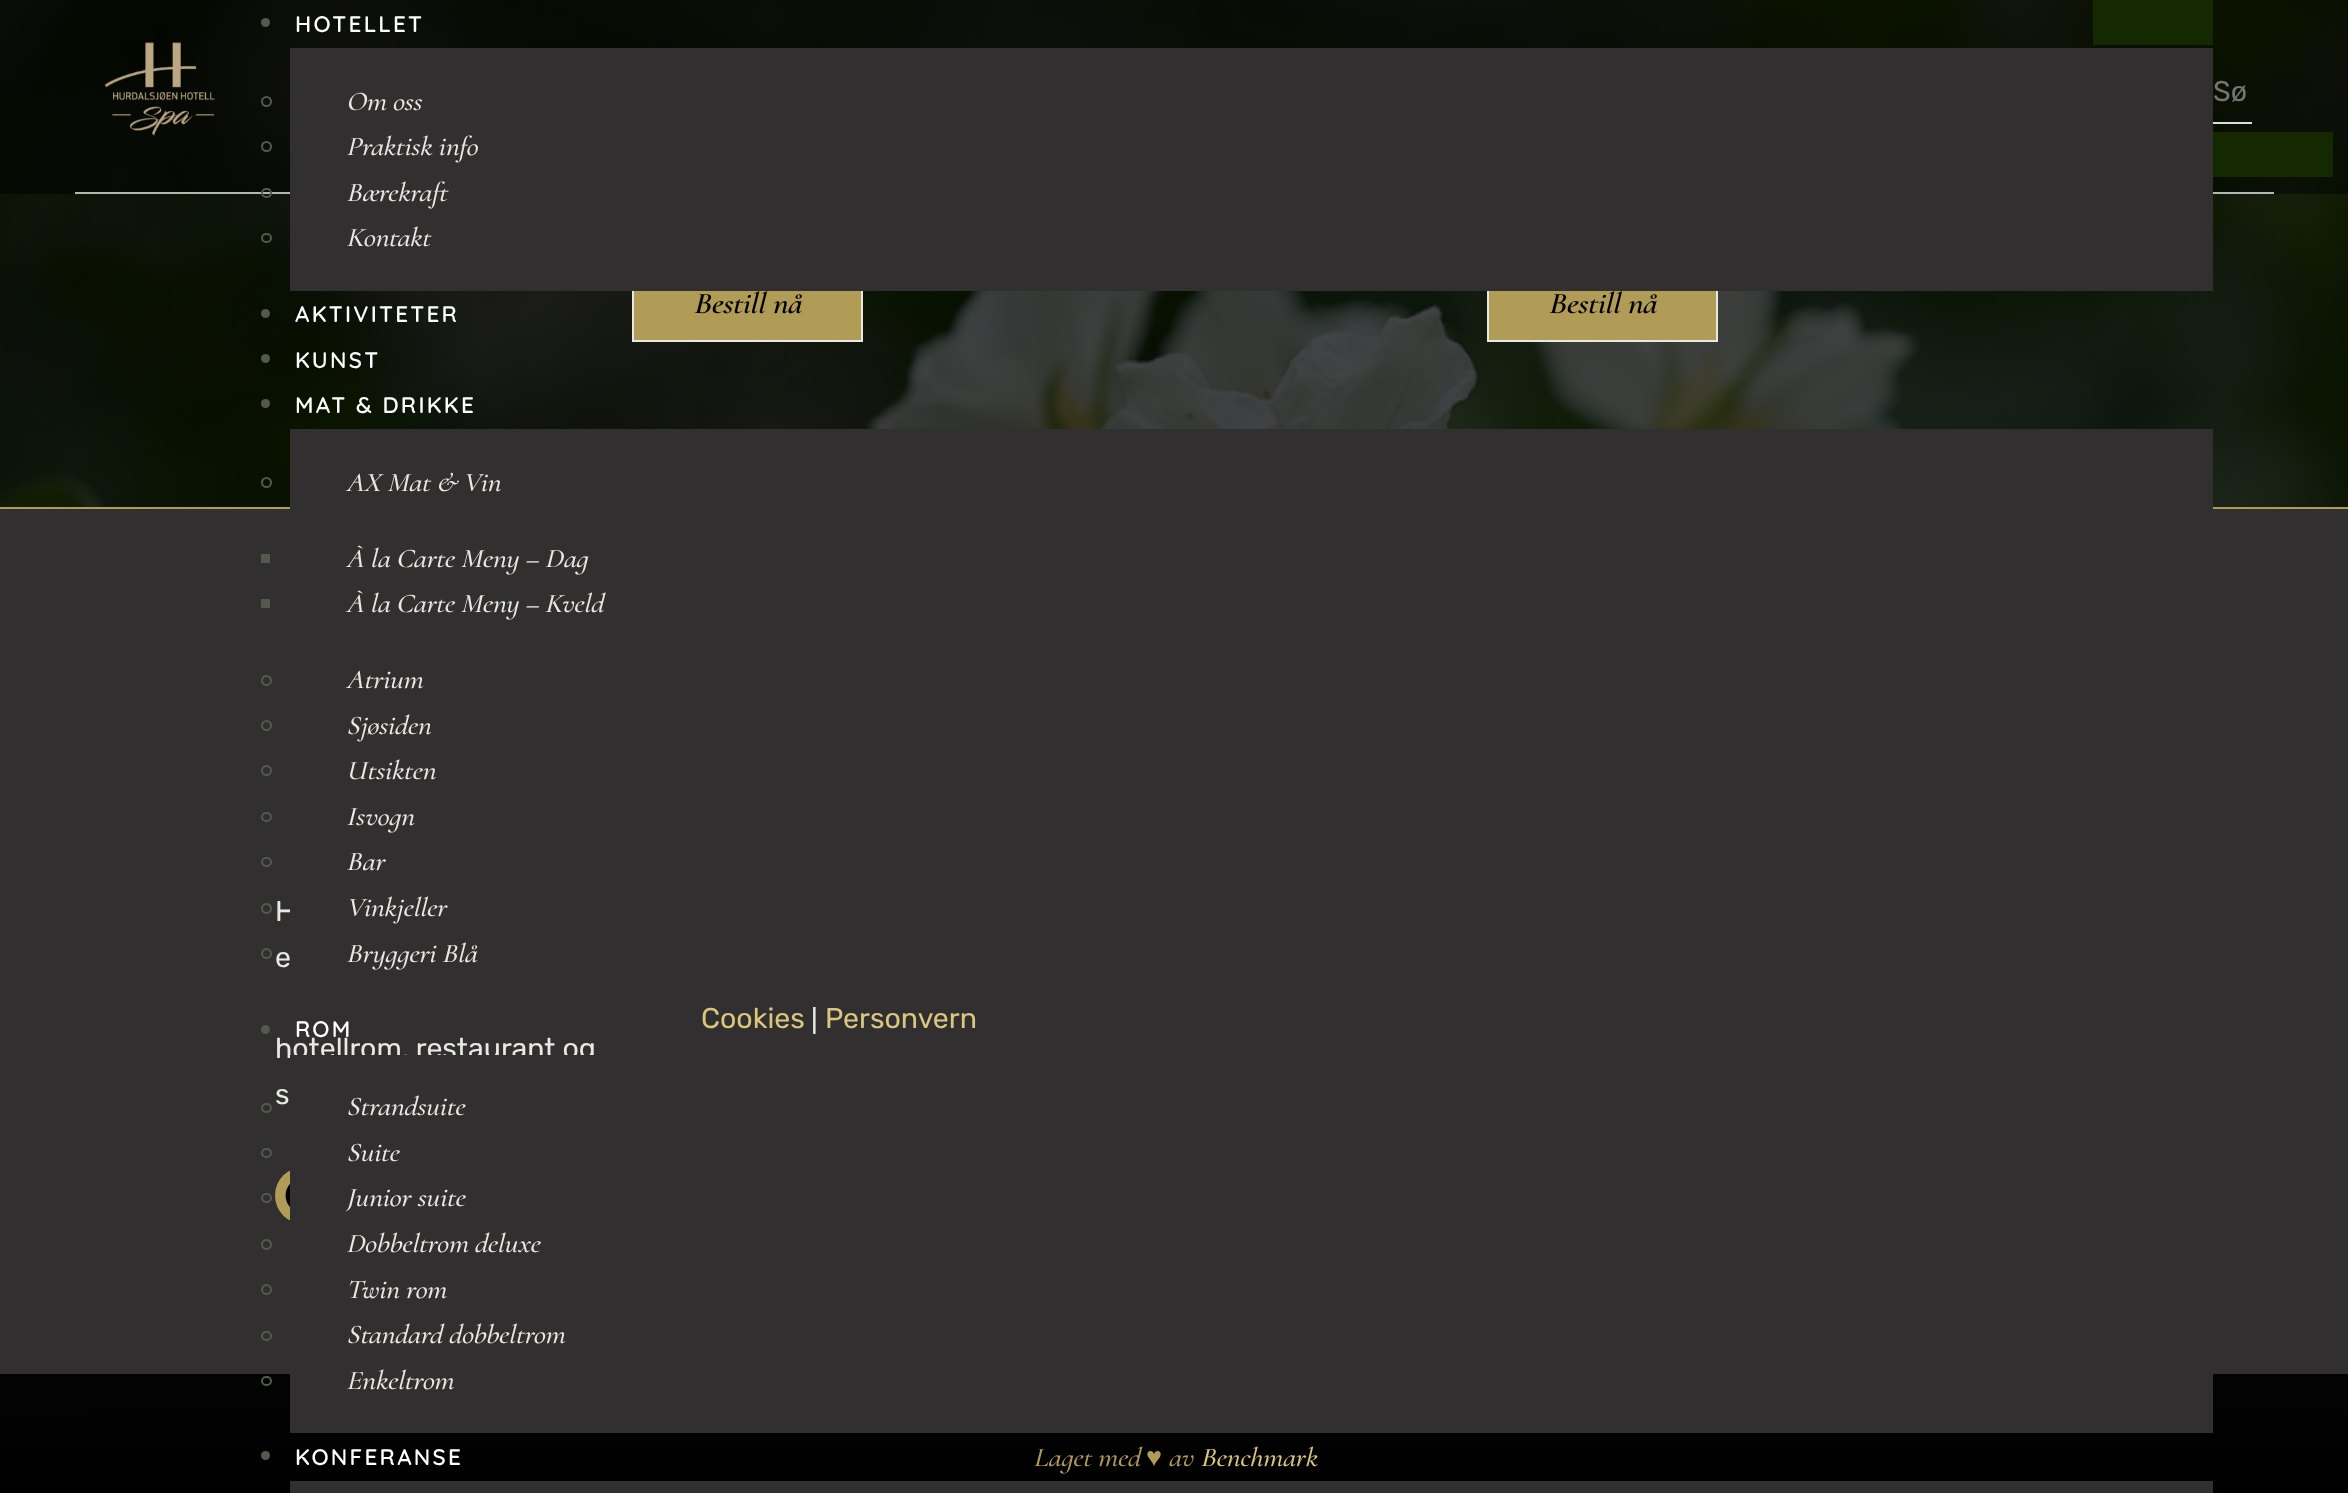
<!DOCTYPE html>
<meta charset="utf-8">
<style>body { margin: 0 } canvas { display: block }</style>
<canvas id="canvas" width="2348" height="1493"></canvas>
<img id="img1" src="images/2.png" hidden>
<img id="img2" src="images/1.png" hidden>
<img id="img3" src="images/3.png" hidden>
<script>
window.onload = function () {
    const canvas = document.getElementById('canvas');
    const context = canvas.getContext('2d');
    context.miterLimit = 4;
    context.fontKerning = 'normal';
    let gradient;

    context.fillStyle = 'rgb(255, 255, 255)';
    context.fillRect(0, 0, 2348, 1493);
    gradient = context.createLinearGradient(1174, -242, 1175, 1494);
    gradient.addColorStop(0, 'rgb(50, 47, 49)');
    gradient.addColorStop(1, 'rgb(0, 0, 0)');
    context.fillStyle = gradient;
    context.fillRect(0, 1374, 2348, 119);
    context.drawImage(document.getElementById('img1'), 0, 0, 2348, 507);
    context.fillStyle = 'rgba(0, 0, 0, 0.48)';
    context.fillRect(0, 0, 2348, 194);
    context.fillStyle = 'rgb(181, 181, 180)';
    context.fillRect(75, 192, 155, 2);
    context.drawImage(document.getElementById('img2'), 105, 42, 110, 94);
    context.fillStyle = 'rgba(255, 255, 255, 0.7)';
    context.fillRect(230, 192, 2044, 2);
    context.fillStyle = 'rgb(83, 90, 76)';
    context.beginPath();
    context.arc(265.5, 22.5, 4.5, 0, 2 * Math.PI);
    context.fill();
    context.fillStyle = 'rgb(176, 156, 87)';
    context.fillRect(634, 291, 227, 49);
    context.strokeStyle = 'rgb(231, 234, 227)';
    context.lineWidth = 2;
    context.strokeRect(633, 268, 229, 73);
    context.fillRect(1489, 291, 227, 49);
    context.strokeRect(1488, 268, 229, 73);
    context.fillStyle = 'rgb(50, 47, 49)';
    context.fillRect(290, 48, 1923, 243);
    context.beginPath();
    context.arc(266.5, 101.5, 4.5, 0, 2 * Math.PI);
    context.strokeStyle = 'rgb(83, 90, 76)';
    context.stroke();
    context.beginPath();
    context.arc(266.5, 146.5, 4.5, 0, 2 * Math.PI);
    context.stroke();
    context.beginPath();
    context.roundRect(262, 189, 9, 8, 4);
    context.stroke();
    context.beginPath();
    context.roundRect(262, 234, 9, 8, 4);
    context.stroke();
    context.fillStyle = 'rgb(83, 90, 76)';
    context.beginPath();
    context.arc(265.5, 313.5, 4.5, 0, 2 * Math.PI);
    context.fill();
    context.beginPath();
    context.arc(265.5, 358.5, 4.5, 0, 2 * Math.PI);
    context.fill();
    context.beginPath();
    context.arc(265.5, 403.5, 4.5, 0, 2 * Math.PI);
    context.fill();
    context.beginPath();
    context.arc(266.5, 482.5, 4.5, 0, 2 * Math.PI);
    context.stroke();
    context.fillStyle = 'rgb(50, 47, 49)';
    context.fillRect(0, 509, 2348, 865);
    context.fillStyle = 'rgb(83, 90, 76)';
    context.fillRect(261, 554, 9, 9);
    context.fillRect(261, 599, 9, 9);
    context.beginPath();
    context.arc(266.5, 680.5, 4.5, 0, 2 * Math.PI);
    context.stroke();
    context.beginPath();
    context.arc(266.5, 725.5, 4.5, 0, 2 * Math.PI);
    context.stroke();
    context.beginPath();
    context.arc(266.5, 770.5, 4.5, 0, 2 * Math.PI);
    context.stroke();
    context.beginPath();
    context.roundRect(262, 813, 9, 8, 4);
    context.stroke();
    context.beginPath();
    context.roundRect(262, 858, 9, 8, 4);
    context.stroke();
    context.beginPath();
    context.arc(266.5, 908.5, 4.5, 0, 2 * Math.PI);
    context.stroke();
    context.beginPath();
    context.arc(266.5, 953.5, 4.5, 0, 2 * Math.PI);
    context.stroke();
    context.beginPath();
    context.arc(265.5, 1029.5, 4.5, 0, 2 * Math.PI);
    context.fill();
    context.beginPath();
    context.roundRect(262, 1104, 9, 8, 4);
    context.stroke();
    context.beginPath();
    context.roundRect(262, 1149, 9, 8, 4);
    context.stroke();
    context.beginPath();
    context.roundRect(262, 1194, 9, 8, 4);
    context.stroke();
    context.beginPath();
    context.arc(266.5, 1244.5, 4.5, 0, 2 * Math.PI);
    context.stroke();
    context.beginPath();
    context.arc(266.5, 1289.5, 4.5, 0, 2 * Math.PI);
    context.stroke();
    context.beginPath();
    context.roundRect(262, 1332, 9, 8, 4);
    context.stroke();
    context.beginPath();
    context.roundRect(262, 1377, 9, 8, 4);
    context.stroke();
    context.beginPath();
    context.arc(265.5, 1455.5, 4.5, 0, 2 * Math.PI);
    context.fill();
    context.fillStyle = 'rgb(50, 47, 49)';
    context.fillRect(290, 1481, 1923, 12);
    context.fillStyle = 'rgb(20, 40, 2)';
    context.fillRect(2093, 0, 120, 45);
    context.fillStyle = 'rgb(220, 224, 216)';
    context.fillRect(2213, 122, 39, 2);
    context.fillStyle = 'rgb(20, 40, 2)';
    context.fillRect(2213, 132, 120, 45);
    context.fillStyle = 'rgb(176, 156, 87)';
    context.fillRect(0, 507, 2348, 2);
    context.beginPath();
    context.arc(303.5, 1195.5, 28.5, 0, 2 * Math.PI);
    context.fill();
    context.drawImage(document.getElementById('img3'), 285, 1184, 5, 23);
    context.letterSpacing = '2.25px';
    context.font = '600 22.5px Quicksand';
    context.fillStyle = 'rgb(255, 255, 255)';
    context.fillText('HOTELLET', 295, 32);
    context.letterSpacing = '0px';
    context.font = 'italic 500 27px Cormorant Upright';
    context.fillStyle = 'rgb(231, 234, 227)';
    context.fillText('Om oss', 346, 110);
    context.fillText('Praktisk info', 346, 155);
    context.fillText('Bærekraft', 346, 201);
    context.fillText('Kontakt', 346, 246);
    context.letterSpacing = '2.25px';
    context.font = '600 22.5px Quicksand';
    context.fillStyle = 'rgb(255, 255, 255)';
    context.fillText('AKTIVITETER', 295, 322);
    context.fillText('KUNST', 295, 368);
    context.fillText('MAT & DRIKKE', 295, 413);
    context.fillText('ROM', 295, 1037);
    context.fillText('KONFERANSE', 295, 1465);
    context.letterSpacing = '0px';
    context.font = '28.5px Rubik';
    context.fillStyle = 'rgb(117, 117, 117)';
    context.fillText('Sø', 2213, 101);
    context.font = 'italic 600 30px Cormorant Upright';
    context.fillStyle = 'rgb(0, 0, 0)';
    context.fillText('Bestill nå', 693, 313);
    context.fillText('Bestill nå', 1548, 313);
    context.font = '28.5px Rubik';
    context.fillStyle = 'rgb(231, 234, 227)';
    context.fillText('H', 275, 921);
    context.fillText('e', 275, 967);
    context.fillText('hotellrom, restaurant og', 275, 1058);
    context.fillStyle = 'rgb(50, 47, 49)';
    context.fillRect(290, 1055, 1923, 378);
    context.font = 'italic 500 27px Cormorant Upright';
    context.fillStyle = 'rgb(231, 234, 227)';
    context.fillText('Enkeltrom', 346, 1389);
    context.fillText('Standard dobbeltrom', 346, 1343);
    context.fillText('Twin rom', 346, 1298);
    context.fillText('Dobbeltrom deluxe', 346, 1252);
    context.fillText('Junior suite', 346, 1206);
    context.fillText('Suite', 346, 1161);
    context.fillText('Strandsuite', 346, 1115);
    context.font = '28.5px Rubik';
    context.fillText('s', 275, 1104);
    context.fillStyle = 'rgb(217, 199, 126)';
    context.fillText('Cookies', 701, 1028);
    context.fillStyle = 'rgb(231, 234, 227)';
    context.fillText('|', 811, 1028);
    context.fillStyle = 'rgb(50, 47, 49)';
    context.fillRect(290, 429, 1923, 578);
    context.font = 'italic 500 27px Cormorant Upright';
    context.fillStyle = 'rgb(231, 234, 227)';
    context.fillText('Bryggeri Blå', 346, 962);
    context.fillText('Vinkjeller', 346, 916);
    context.fillText('Bar', 346, 870);
    context.fillText('Isvogn', 346, 825);
    context.fillText('Utsikten', 346, 779);
    context.fillText('Sjøsiden', 346, 734);
    context.fillText('Atrium', 346, 688);
    context.fillText('À la Carte Meny – Kveld', 346, 612);
    context.fillText('À la Carte Meny – Dag', 346, 567);
    context.fillText('AX Mat & Vin', 346, 491);
    context.font = '28.5px Rubik';
    context.fillStyle = 'rgb(217, 199, 126)';
    context.fillText('Personvern', 825, 1028);
    context.font = 'italic 500 27px Cormorant Upright';
    context.fillStyle = 'rgb(176, 156, 87)';
    context.fillText('Laget med', 1033, 1466);
    context.font = 'italic 27px Liberation Sans';
    context.fillText('♥', 1146, 1466);
    context.font = 'italic 500 27px Cormorant Upright';
    context.fillText('av', 1168, 1466);
    context.fillStyle = 'rgb(217, 199, 126)';
    context.fillText('Benchmark', 1200, 1466);
};
</script>
